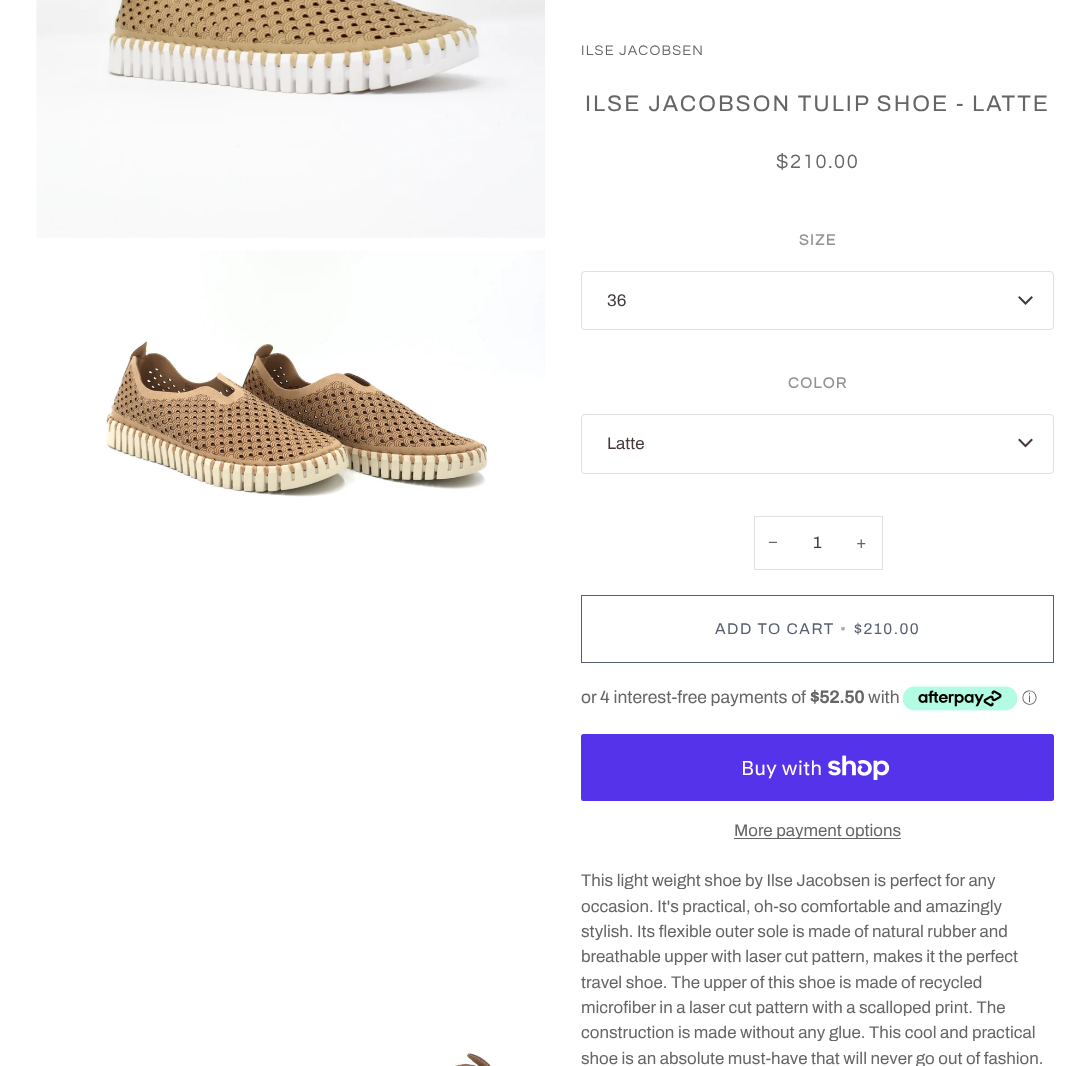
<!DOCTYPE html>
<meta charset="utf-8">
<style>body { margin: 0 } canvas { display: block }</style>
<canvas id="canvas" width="1090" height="1066"></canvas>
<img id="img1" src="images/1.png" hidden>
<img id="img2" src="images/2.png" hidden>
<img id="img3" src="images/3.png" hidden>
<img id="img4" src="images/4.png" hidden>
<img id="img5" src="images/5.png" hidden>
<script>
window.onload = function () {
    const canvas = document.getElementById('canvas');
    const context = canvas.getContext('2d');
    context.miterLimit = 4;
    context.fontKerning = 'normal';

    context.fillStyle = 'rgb(255, 255, 255)';
    context.fillRect(0, 0, 1090, 1066);
    context.drawImage(document.getElementById('img1'), 36, 0, 509, 238);
    context.drawImage(document.getElementById('img2'), 106, 250, 439, 247);
    context.drawImage(document.getElementById('img3'), 451, 1052, 41, 14);
    context.beginPath();
    context.roundRect(581.5, 271.5, 472, 58, 3.5);
    context.strokeStyle = 'rgb(224, 224, 224)';
    context.stroke();
    context.beginPath();
    context.moveTo(1019.5, 297.5);
    context.lineTo(1025.5, 303.5);
    context.lineTo(1031.5, 297.5);
    context.strokeStyle = 'rgb(69, 57, 57)';
    context.lineWidth = 2;
    context.lineCap = 'square';
    context.stroke();
    context.beginPath();
    context.roundRect(581.5, 414.5, 472, 59, 3.5);
    context.strokeStyle = 'rgb(224, 224, 224)';
    context.lineWidth = 1;
    context.stroke();
    context.beginPath();
    context.moveTo(1019.5, 440);
    context.lineTo(1025.5, 446);
    context.lineTo(1031.5, 440);
    context.strokeStyle = 'rgb(69, 57, 57)';
    context.lineWidth = 2;
    context.stroke();
    context.strokeStyle = 'rgb(224, 224, 224)';
    context.lineWidth = 1;
    context.strokeRect(754.5, 516.5, 128, 53);
    context.strokeStyle = 'rgb(88, 94, 113)';
    context.strokeRect(581.5, 595.5, 472, 67);
    context.drawImage(document.getElementById('img4'), 903, 686, 115, 25);
    context.fillStyle = 'rgb(84, 51, 235)';
    context.beginPath();
    context.roundRect(581, 734, 473, 67, 2.5);
    context.fill();
    context.drawImage(document.getElementById('img5'), 828, 755, 62, 25);
    context.fillStyle = 'rgb(101, 101, 101)';
    context.fillRect(734, 838, 167, 1);
    context.letterSpacing = '1.25px';
    context.font = '14.4px Questrial';
    context.fillText('ILSE JACOBSEN', 581, 55);
    context.letterSpacing = '2px';
    context.font = '22.5px Archivo';
    context.fillText('ILSE JACOBSON TULIP SHOE - LATTE', 585, 111);
    context.letterSpacing = '1.75px';
    context.font = '20px Questrial';
    context.fillText('$210.00', 776, 168);
    context.letterSpacing = '1.5px';
    context.font = 'bold 15.5px Questrial';
    context.fillStyle = 'rgb(147, 147, 147)';
    context.fillText('SIZE', 799, 245);
    context.letterSpacing = '0px';
    context.font = '16.9px Archivo';
    context.fillStyle = 'rgb(69, 57, 57)';
    context.fillText('36', 607, 306);
    context.letterSpacing = '1.5px';
    context.font = 'bold 15.5px Questrial';
    context.fillStyle = 'rgb(147, 147, 147)';
    context.fillText('COLOR', 788, 388);
    context.letterSpacing = '0px';
    context.font = '16.9px Archivo';
    context.fillStyle = 'rgb(69, 57, 57)';
    context.fillText('Latte', 607, 449);
    context.font = '16.9px Liberation Sans';
    context.fillStyle = 'rgb(101, 101, 101)';
    context.fillText('−', 768, 548);
    context.font = '16.9px Archivo';
    context.fillStyle = 'rgb(69, 57, 57)';
    context.fillText('1', 813, 548);
    context.fillStyle = 'rgb(101, 101, 101)';
    context.fillText('+', 856, 548);
    context.letterSpacing = '1.5px';
    context.font = '15.5px Archivo';
    context.fillStyle = 'rgb(88, 94, 113)';
    context.fillText('ADD TO CART', 715, 634);
    context.fillStyle = 'rgb(172, 175, 184)';
    context.fillText('•', 840, 634);
    context.fillStyle = 'rgb(88, 94, 113)';
    context.fillText('$210.00', 854, 634);
    context.letterSpacing = '0px';
    context.font = '17.5px Archivo';
    context.fillStyle = 'rgb(101, 101, 101)';
    context.fillText('or 4 interest-free payments of', 581, 703);
    context.font = 'bold 17.5px Archivo';
    context.fillText('$52.50', 810, 703);
    context.font = '17.5px Archivo';
    context.fillText('with', 868, 703);
    context.font = '500 15px WenQuanYi Zen Hei';
    context.fillText('ⓘ', 1022, 703);
    context.font = '20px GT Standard';
    context.fillStyle = 'rgb(255, 255, 255)';
    context.fillText('Buy with', 741, 775);
    context.font = '16.9px Archivo';
    context.fillStyle = 'rgb(101, 101, 101)';
    context.fillText('More payment options', 734, 836);
    context.fillText('This light weight shoe by Ilse Jacobsen is perfect for any', 581, 886);
    context.fillText('occasion. It\'s practical, oh-so comfortable and amazingly', 581, 912);
    context.fillText('stylish. Its flexible outer sole is made of natural rubber and', 581, 937);
    context.fillText('breathable upper with laser cut pattern, makes it the perfect', 581, 962);
    context.fillText('travel shoe. The upper of this shoe is made of recycled', 581, 988);
    context.fillText('microfiber in a laser cut pattern with a scalloped print. The', 581, 1013);
    context.fillText('construction is made without any glue. This cool and practical', 581, 1038);
    context.fillText('shoe is an absolute must-have that will never go out of fashion.', 581, 1064);
};
</script>
